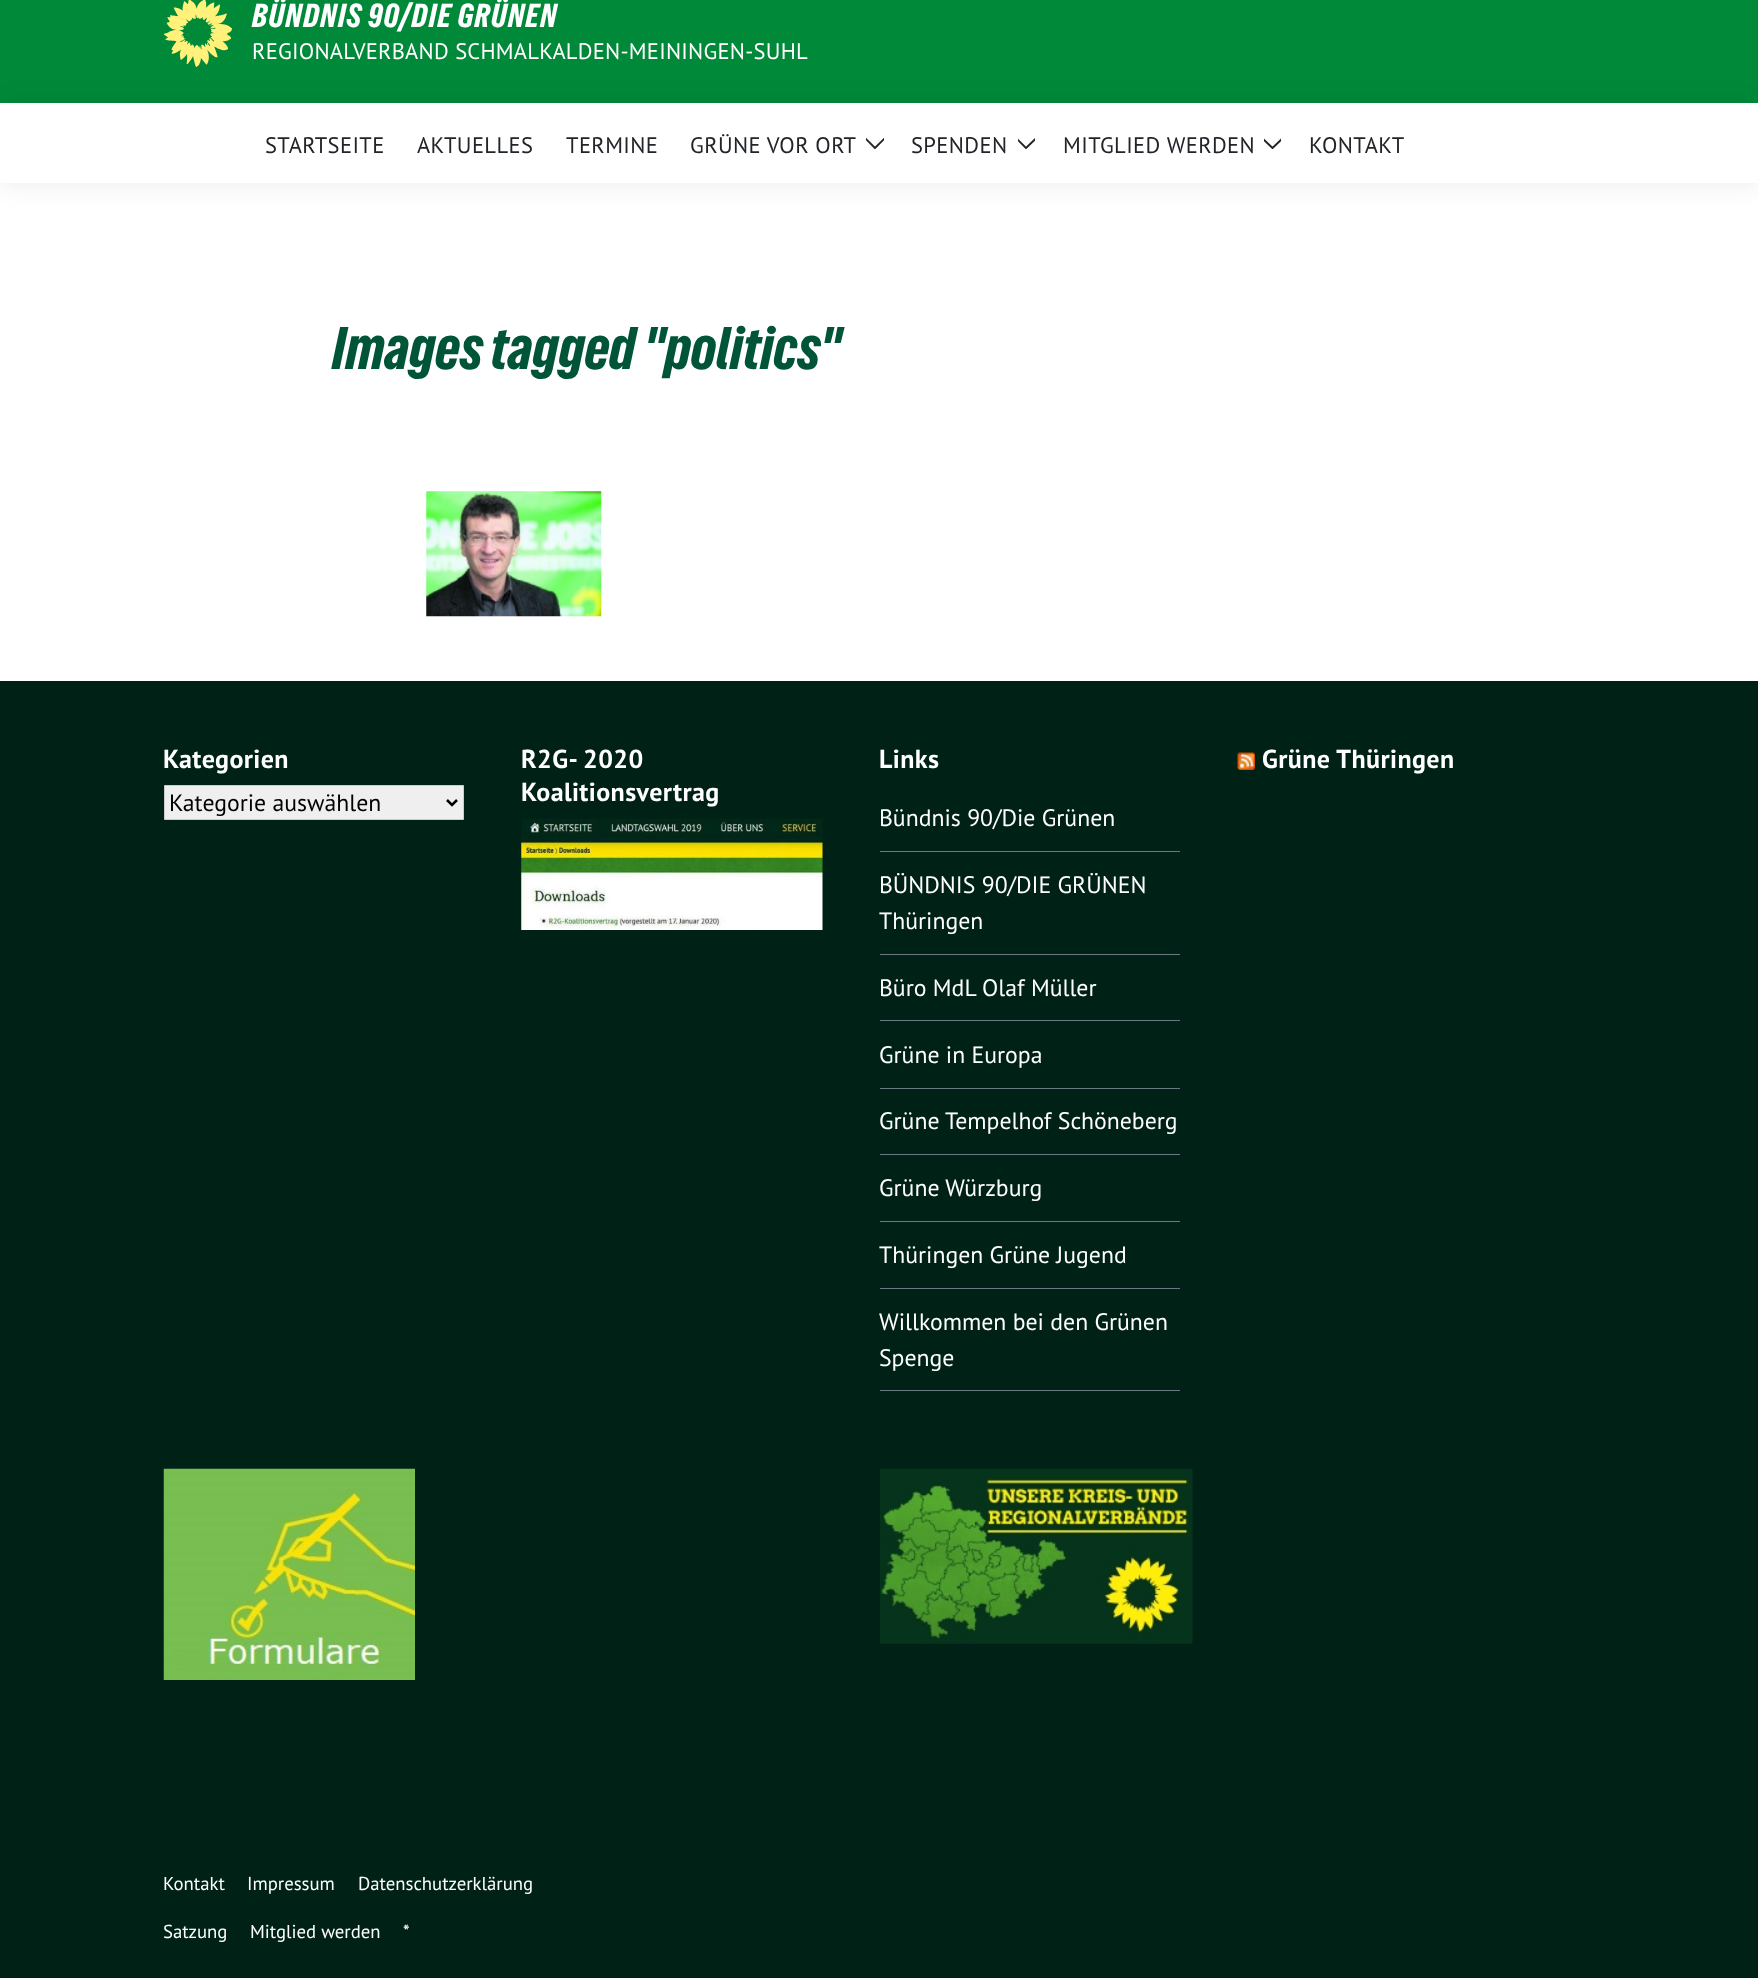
<!DOCTYPE html>
<meta charset="utf-8">
<style>body { margin: 0 } canvas { display: block }</style>
<canvas id="canvas" width="1758" height="1978"></canvas>
<img id="img1" src="images/1.png" hidden>
<img id="img2" src="images/2.png" hidden>
<img id="img3" src="images/3.png" hidden>
<img id="img4" src="images/4.png" hidden>
<img id="img5" src="images/5.png" hidden>
<img id="img6" src="images/6.png" hidden>
<script>
window.onload = function () {
    const canvas = document.getElementById('canvas');
    const context = canvas.getContext('2d');
    context.miterLimit = 4;
    context.fontKerning = 'normal';

    context.fillStyle = 'rgb(255, 255, 255)';
    context.fillRect(0, 0, 1758, 1978);
    context.fillStyle = 'rgb(0, 137, 57)';
    context.fillRect(0, 0, 1758, 103);
    context.drawImage(document.getElementById('img1'), 164, 0, 69, 68);
    context.fillStyle = 'rgba(0, 0, 0, 0.08)';
    context.filter = 'blur(12.5px)';
    context.beginPath();
    context.rect(0, 104, 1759, 80);
    context.fill();
    context.filter = 'none';
    context.fillStyle = 'rgb(255, 255, 255)';
    context.fillRect(0, 103, 1758, 80);
    context.save();
    context.beginPath();
    context.rect(866, 128, 18, 30);
    context.clip();
    context.beginPath();
    context.moveTo(864, 137);
    context.lineTo(875, 148);
    context.lineTo(886, 137);
    context.strokeStyle = 'rgb(33, 37, 41)';
    context.lineWidth = 1.9;
    context.lineCap = 'round';
    context.lineJoin = 'round';
    context.stroke();
    context.restore();
    context.save();
    context.beginPath();
    context.rect(1018, 128, 17, 30);
    context.clip();
    context.beginPath();
    context.moveTo(1015, 137);
    context.lineTo(1026, 148);
    context.lineTo(1037.5, 137);
    context.strokeStyle = 'rgb(33, 37, 41)';
    context.lineWidth = 1.9;
    context.lineCap = 'round';
    context.lineJoin = 'round';
    context.stroke();
    context.restore();
    context.save();
    context.beginPath();
    context.rect(1264, 128, 17, 30);
    context.clip();
    context.beginPath();
    context.moveTo(1261, 137);
    context.lineTo(1272.5, 148);
    context.lineTo(1284, 137);
    context.strokeStyle = 'rgb(33, 37, 41)';
    context.lineWidth = 1.9;
    context.lineCap = 'round';
    context.lineJoin = 'round';
    context.stroke();
    context.restore();
    context.drawImage(document.getElementById('img2'), 426, 491, 176, 126);
    context.fillStyle = 'rgb(0, 34, 22)';
    context.fillRect(0, 681, 1758, 1297);
    context.fillStyle = 'rgb(239, 239, 239)';
    context.beginPath();
    context.rect(164.5, 785.5, 299, 34);
    context.fill();
    context.strokeStyle = 'rgb(204, 204, 204)';
    context.stroke();
    context.beginPath();
    context.moveTo(447, 800);
    context.lineTo(452, 805);
    context.lineTo(457, 800);
    context.strokeStyle = 'rgb(0, 0, 0)';
    context.lineWidth = 2.5;
    context.stroke();
    context.drawImage(document.getElementById('img3'), 521, 818, 302, 112);
    context.fillStyle = 'rgb(107, 122, 128)';
    context.fillRect(880, 851, 300, 1);
    context.fillRect(880, 954, 300, 1);
    context.fillRect(880, 1020, 300, 1);
    context.fillRect(880, 1088, 300, 1);
    context.fillRect(880, 1154, 300, 1);
    context.fillRect(880, 1221, 300, 1);
    context.fillRect(880, 1288, 300, 1);
    context.fillRect(880, 1390, 300, 1);
    context.drawImage(document.getElementById('img4'), 1237, 752, 18, 18);
    context.drawImage(document.getElementById('img5'), 163, 1468, 252, 212);
    context.drawImage(document.getElementById('img6'), 880, 1468, 313, 176);
    context.letterSpacing = '1.25px';
    context.font = '31.25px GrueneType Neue';
    context.fillStyle = 'rgb(255, 255, 255)';
    context.fillText('BÜNDNIS 90/DIE GRÜNEN', 252, 27);
    context.letterSpacing = '0.25px';
    context.font = '22.5px PT Sans';
    context.fillText('REGIONALVERBAND SCHMALKALDEN-MEININGEN-SUHL', 252, 59);
    context.letterSpacing = '0.4px';
    context.fillStyle = 'rgb(33, 37, 41)';
    context.fillText('STARTSEITE', 265, 153);
    context.fillText('AKTUELLES', 417, 153);
    context.fillText('TERMINE', 566, 153);
    context.fillText('GRÜNE VOR ORT', 690, 153);
    context.fillText('SPENDEN', 911, 153);
    context.fillText('MITGLIED WERDEN', 1063, 153);
    context.fillText('KONTAKT', 1309, 153);
    context.letterSpacing = '0px';
    context.font = '56.25px GrueneType Neue';
    context.fillStyle = 'rgb(0, 84, 55)';
    context.fillText('Images tagged "politics"', 332, 369);
    context.letterSpacing = '0.4px';
    context.font = 'bold 26px PT Sans';
    context.fillStyle = 'rgb(255, 255, 255)';
    context.fillText('Kategorien', 163, 768);
    context.letterSpacing = '0px';
    context.font = '23.75px PT Sans';
    context.fillStyle = 'rgb(0, 0, 0)';
    context.fillText('Kategorie auswählen', 169, 811);
    context.letterSpacing = '0.4px';
    context.font = 'bold 26px PT Sans';
    context.fillStyle = 'rgb(255, 255, 255)';
    context.fillText('R2G- 2020', 521, 768);
    context.fillText('Koalitionsvertrag', 521, 801);
    context.fillText('Links', 879, 768);
    context.letterSpacing = '0px';
    context.font = '23.75px PT Sans';
    context.fillText('Bündnis 90/Die Grünen', 879, 826);
    context.fillText('BÜNDNIS 90/DIE GRÜNEN', 879, 893);
    context.fillText('Thüringen', 879, 929);
    context.fillText('Büro MdL Olaf Müller', 879, 996);
    context.fillText('Grüne in Europa', 879, 1063);
    context.fillText('Grüne Tempelhof Schöneberg', 879, 1129);
    context.fillText('Grüne Würzburg', 879, 1196);
    context.fillText('Thüringen Grüne Jugend', 879, 1263);
    context.fillText('Willkommen bei den Grünen', 879, 1330);
    context.fillText('Spenge', 879, 1366);
    context.letterSpacing = '0.4px';
    context.font = 'bold 26px PT Sans';
    context.fillText('Grüne Thüringen', 1262, 768);
    context.letterSpacing = '0px';
    context.font = '18.75px PT Sans';
    context.fillText('Kontakt', 163, 1890);
    context.fillText('Impressum', 247, 1890);
    context.fillText('Datenschutzerklärung', 358, 1890);
    context.fillText('Satzung', 163, 1938);
    context.fillText('Mitglied werden', 250, 1938);
    context.fillText('*', 403, 1938);
};
</script>
